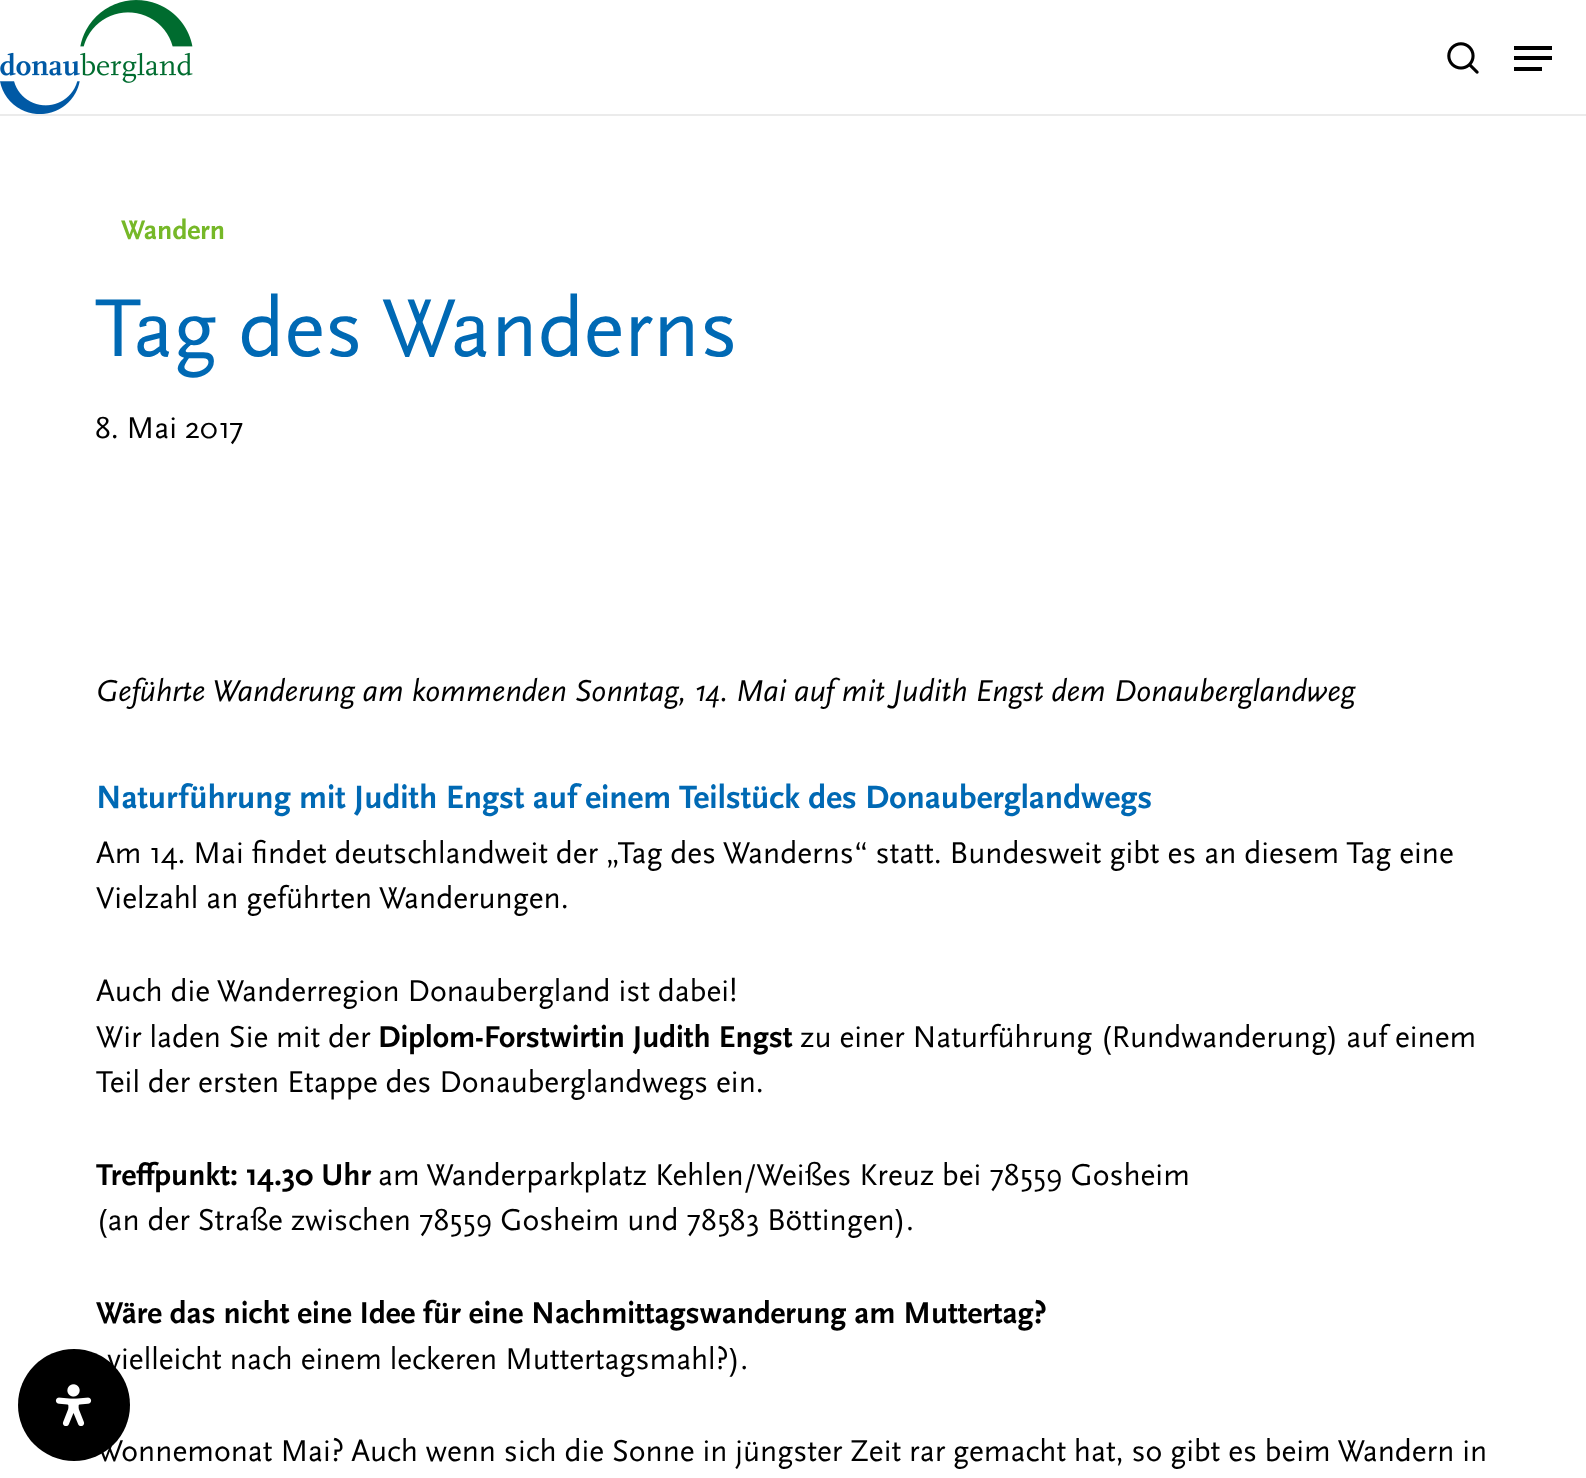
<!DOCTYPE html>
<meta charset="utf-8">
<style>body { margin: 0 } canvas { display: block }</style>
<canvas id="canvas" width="1586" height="1478"></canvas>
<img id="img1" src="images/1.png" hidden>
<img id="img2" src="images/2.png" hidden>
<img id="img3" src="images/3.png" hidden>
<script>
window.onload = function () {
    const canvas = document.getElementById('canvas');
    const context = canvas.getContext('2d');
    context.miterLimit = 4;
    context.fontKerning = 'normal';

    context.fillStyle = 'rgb(255, 255, 255)';
    context.fillRect(0, 0, 1586, 1478);
    context.fillStyle = 'rgb(0, 0, 0)';
    context.beginPath();
    context.arc(74, 1405, 56, 0, 2 * Math.PI);
    context.fill();
    context.drawImage(document.getElementById('img1'), 55, 1384, 37, 42);
    context.fillStyle = 'rgb(235, 235, 235)';
    context.fillRect(0, 114, 1586, 2);
    context.drawImage(document.getElementById('img2'), 0, 0, 193, 114);
    context.drawImage(document.getElementById('img3'), 1447, 42, 32, 32);
    context.fillStyle = 'rgb(0, 0, 0)';
    context.fillRect(1514, 46, 38, 4);
    context.fillRect(1514, 67, 28, 4);
    context.fillRect(1514, 56, 38, 4);
    context.font = 'bold 28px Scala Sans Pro';
    context.fillStyle = 'rgb(118, 184, 40)';
    context.fillText('Wandern', 121, 239);
    context.font = '85.75px Scala Sans Pro';
    context.fillStyle = 'rgb(0, 105, 180)';
    context.fillText('Tag des Wanderns', 95, 356);
    context.font = '31.5px Scala Sans Pro';
    context.fillStyle = 'rgb(0, 0, 0)';
    context.fillText('8. Mai 2017', 95, 438);
    context.font = 'italic 31.5px Scala Sans Pro';
    context.fillText('Geführte Wanderung am kommenden Sonntag, 14. Mai auf mit Judith Engst dem Donauberglandweg', 96, 701);
    context.font = 'bold 33.6px Scala Sans Pro';
    context.fillStyle = 'rgb(0, 105, 180)';
    context.fillText('Naturführung mit Judith Engst auf einem Teilstück des Donauberglandwegs', 96, 808);
    context.font = '31.5px Scala Sans Pro';
    context.fillStyle = 'rgb(0, 0, 0)';
    context.fillText('Am 14. Mai findet deutschlandweit der „Tag des Wanderns“ statt. Bundesweit gibt es an diesem Tag eine', 96, 863);
    context.fillText('Vielzahl an geführten Wanderungen.', 96, 908);
    context.fillText('Auch die Wanderregion Donaubergland ist dabei!', 96, 1001);
    context.fillText('Wir laden Sie mit der', 96, 1047);
    context.font = 'bold 31.5px Scala Sans Pro';
    context.fillText('Diplom-Forstwirtin Judith Engst', 378, 1047);
    context.font = '31.5px Scala Sans Pro';
    context.fillText('zu einer Naturführung (Rundwanderung) auf einem', 800, 1047);
    context.fillText('Teil der ersten Etappe des Donauberglandwegs ein.', 96, 1092);
    context.font = 'bold 31.5px Scala Sans Pro';
    context.fillText('Treffpunkt: 14.30 Uhr', 96, 1185);
    context.font = '31.5px Scala Sans Pro';
    context.fillText('am Wanderparkplatz Kehlen/Weißes Kreuz bei 78559 Gosheim', 378, 1185);
    context.fillText('(an der Straße zwischen 78559 Gosheim und 78583 Böttingen).', 96, 1230);
    context.font = 'bold 31.5px Scala Sans Pro';
    context.fillText('Wäre das nicht eine Idee für eine Nachmittagswanderung am Muttertag?', 96, 1323);
    context.font = '31.5px Scala Sans Pro';
    context.fillText('vielleicht nach einem leckeren Muttertagsmahl?).', 107, 1369);
    context.fillText('Wonnemonat Mai? Auch wenn sich die Sonne in jüngster Zeit rar gemacht hat, so gibt es beim Wandern in', 96, 1461);
};
</script>
